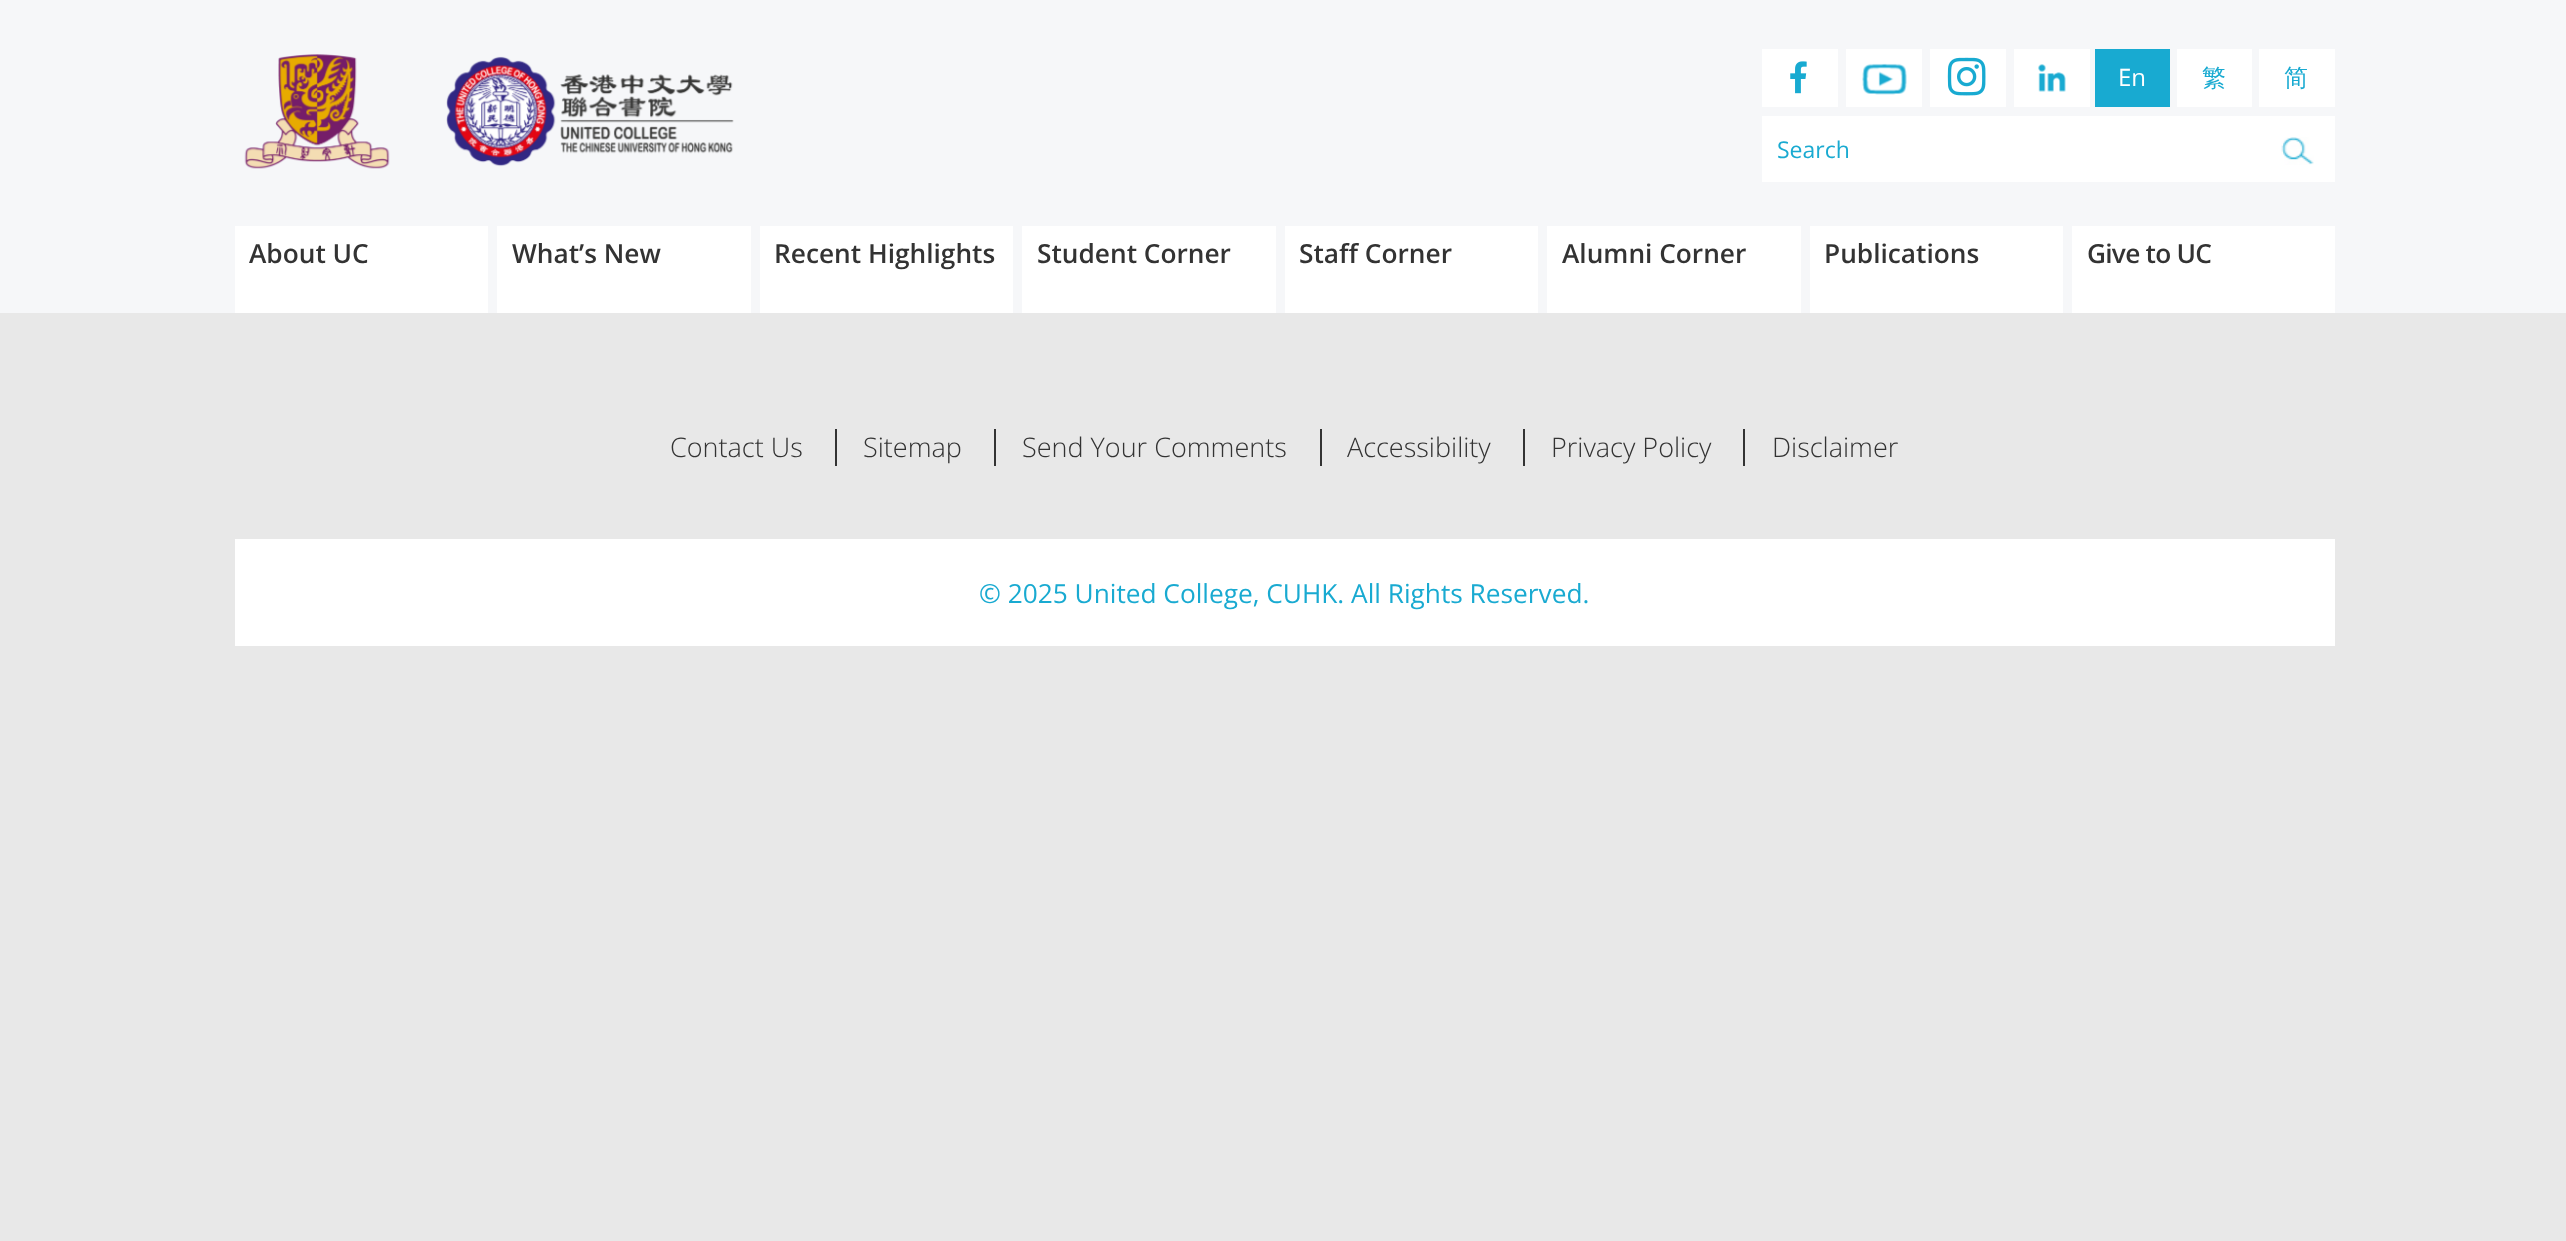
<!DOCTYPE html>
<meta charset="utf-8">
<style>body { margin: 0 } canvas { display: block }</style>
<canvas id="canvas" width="2566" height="1241"></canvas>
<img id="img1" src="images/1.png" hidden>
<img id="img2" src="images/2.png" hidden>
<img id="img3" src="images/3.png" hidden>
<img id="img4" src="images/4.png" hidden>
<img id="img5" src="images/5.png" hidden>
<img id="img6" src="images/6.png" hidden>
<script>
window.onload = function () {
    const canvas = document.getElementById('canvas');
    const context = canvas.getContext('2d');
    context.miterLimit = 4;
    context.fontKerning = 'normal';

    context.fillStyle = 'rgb(232, 232, 232)';
    context.fillRect(0, 0, 2566, 1241);
    context.fillStyle = 'rgb(246, 247, 249)';
    context.fillRect(0, 0, 2566, 313);
    context.drawImage(document.getElementById('img1'), 244, 54, 490, 115);
    context.fillStyle = 'rgb(255, 255, 255)';
    context.fillRect(1762, 49, 76, 58);
    context.drawImage(document.getElementById('img2'), 1790, 61, 17, 33);
    context.fillRect(1846, 49, 76, 58);
    context.drawImage(document.getElementById('img3'), 1862, 63, 45, 32);
    context.fillRect(1930, 49, 76, 58);
    context.drawImage(document.getElementById('img4'), 1947, 57, 39, 39);
    context.fillRect(2014, 49, 76, 58);
    context.drawImage(document.getElementById('img5'), 2038, 64, 28, 28);
    context.fillStyle = 'rgb(24, 170, 209)';
    context.fillRect(2095, 49, 75, 58);
    context.fillStyle = 'rgb(255, 255, 255)';
    context.fillRect(2177, 49, 75, 58);
    context.fillRect(2259, 49, 76, 58);
    context.fillRect(1762, 116, 573, 66);
    context.drawImage(document.getElementById('img6'), 2281, 137, 33, 28);
    context.fillRect(235, 226, 253, 87);
    context.fillRect(497, 226, 254, 87);
    context.fillRect(760, 226, 253, 87);
    context.fillRect(1022, 226, 254, 87);
    context.fillRect(1285, 226, 253, 87);
    context.fillRect(1547, 226, 254, 87);
    context.fillRect(1810, 226, 253, 87);
    context.fillRect(2072, 226, 263, 87);
    context.fillStyle = 'rgb(51, 51, 51)';
    context.fillRect(835, 429, 2, 37);
    context.fillRect(994, 429, 2, 37);
    context.fillRect(1320, 429, 2, 37);
    context.fillRect(1523, 429, 2, 37);
    context.fillRect(1743, 429, 2, 37);
    context.fillStyle = 'rgb(255, 255, 255)';
    context.fillRect(235, 539, 2100, 107);
    context.font = '24px Open Sans';
    context.fillText('En', 2118, 86);
    context.font = '500 24px WenQuanYi Zen Hei';
    context.fillStyle = 'rgb(25, 170, 209)';
    context.fillText('繁', 2202, 86);
    context.fillText('简', 2284, 86);
    context.font = '23px Open Sans';
    context.fillText('Search', 1777, 158);
    context.font = '600 26.25px Open Sans';
    context.fillStyle = 'rgb(51, 51, 51)';
    context.fillText('About UC', 249, 263);
    context.fillText('What’s New', 512, 263);
    context.fillText('Recent Highlights', 774, 263);
    context.fillText('Student Corner', 1037, 263);
    context.fillText('Staff Corner', 1299, 263);
    context.fillText('Alumni Corner', 1562, 263);
    context.fillText('Publications', 1824, 263);
    context.letterSpacing = '-0.75px';
    context.fillText('Give to UC', 2087, 263);
    context.letterSpacing = '0px';
    context.font = '300 27px Open Sans';
    context.fillText('Contact Us', 670, 457);
    context.fillText('Sitemap', 863, 457);
    context.fillText('Send Your Comments', 1022, 457);
    context.fillText('Accessibility', 1347, 457);
    context.fillText('Privacy Policy', 1551, 457);
    context.fillText('Disclaimer', 1772, 457);
    context.font = '26.25px Open Sans';
    context.fillStyle = 'rgb(25, 170, 209)';
    context.fillText('© 2025 United College, CUHK. All Rights Reserved.', 979, 603);
};
</script>
